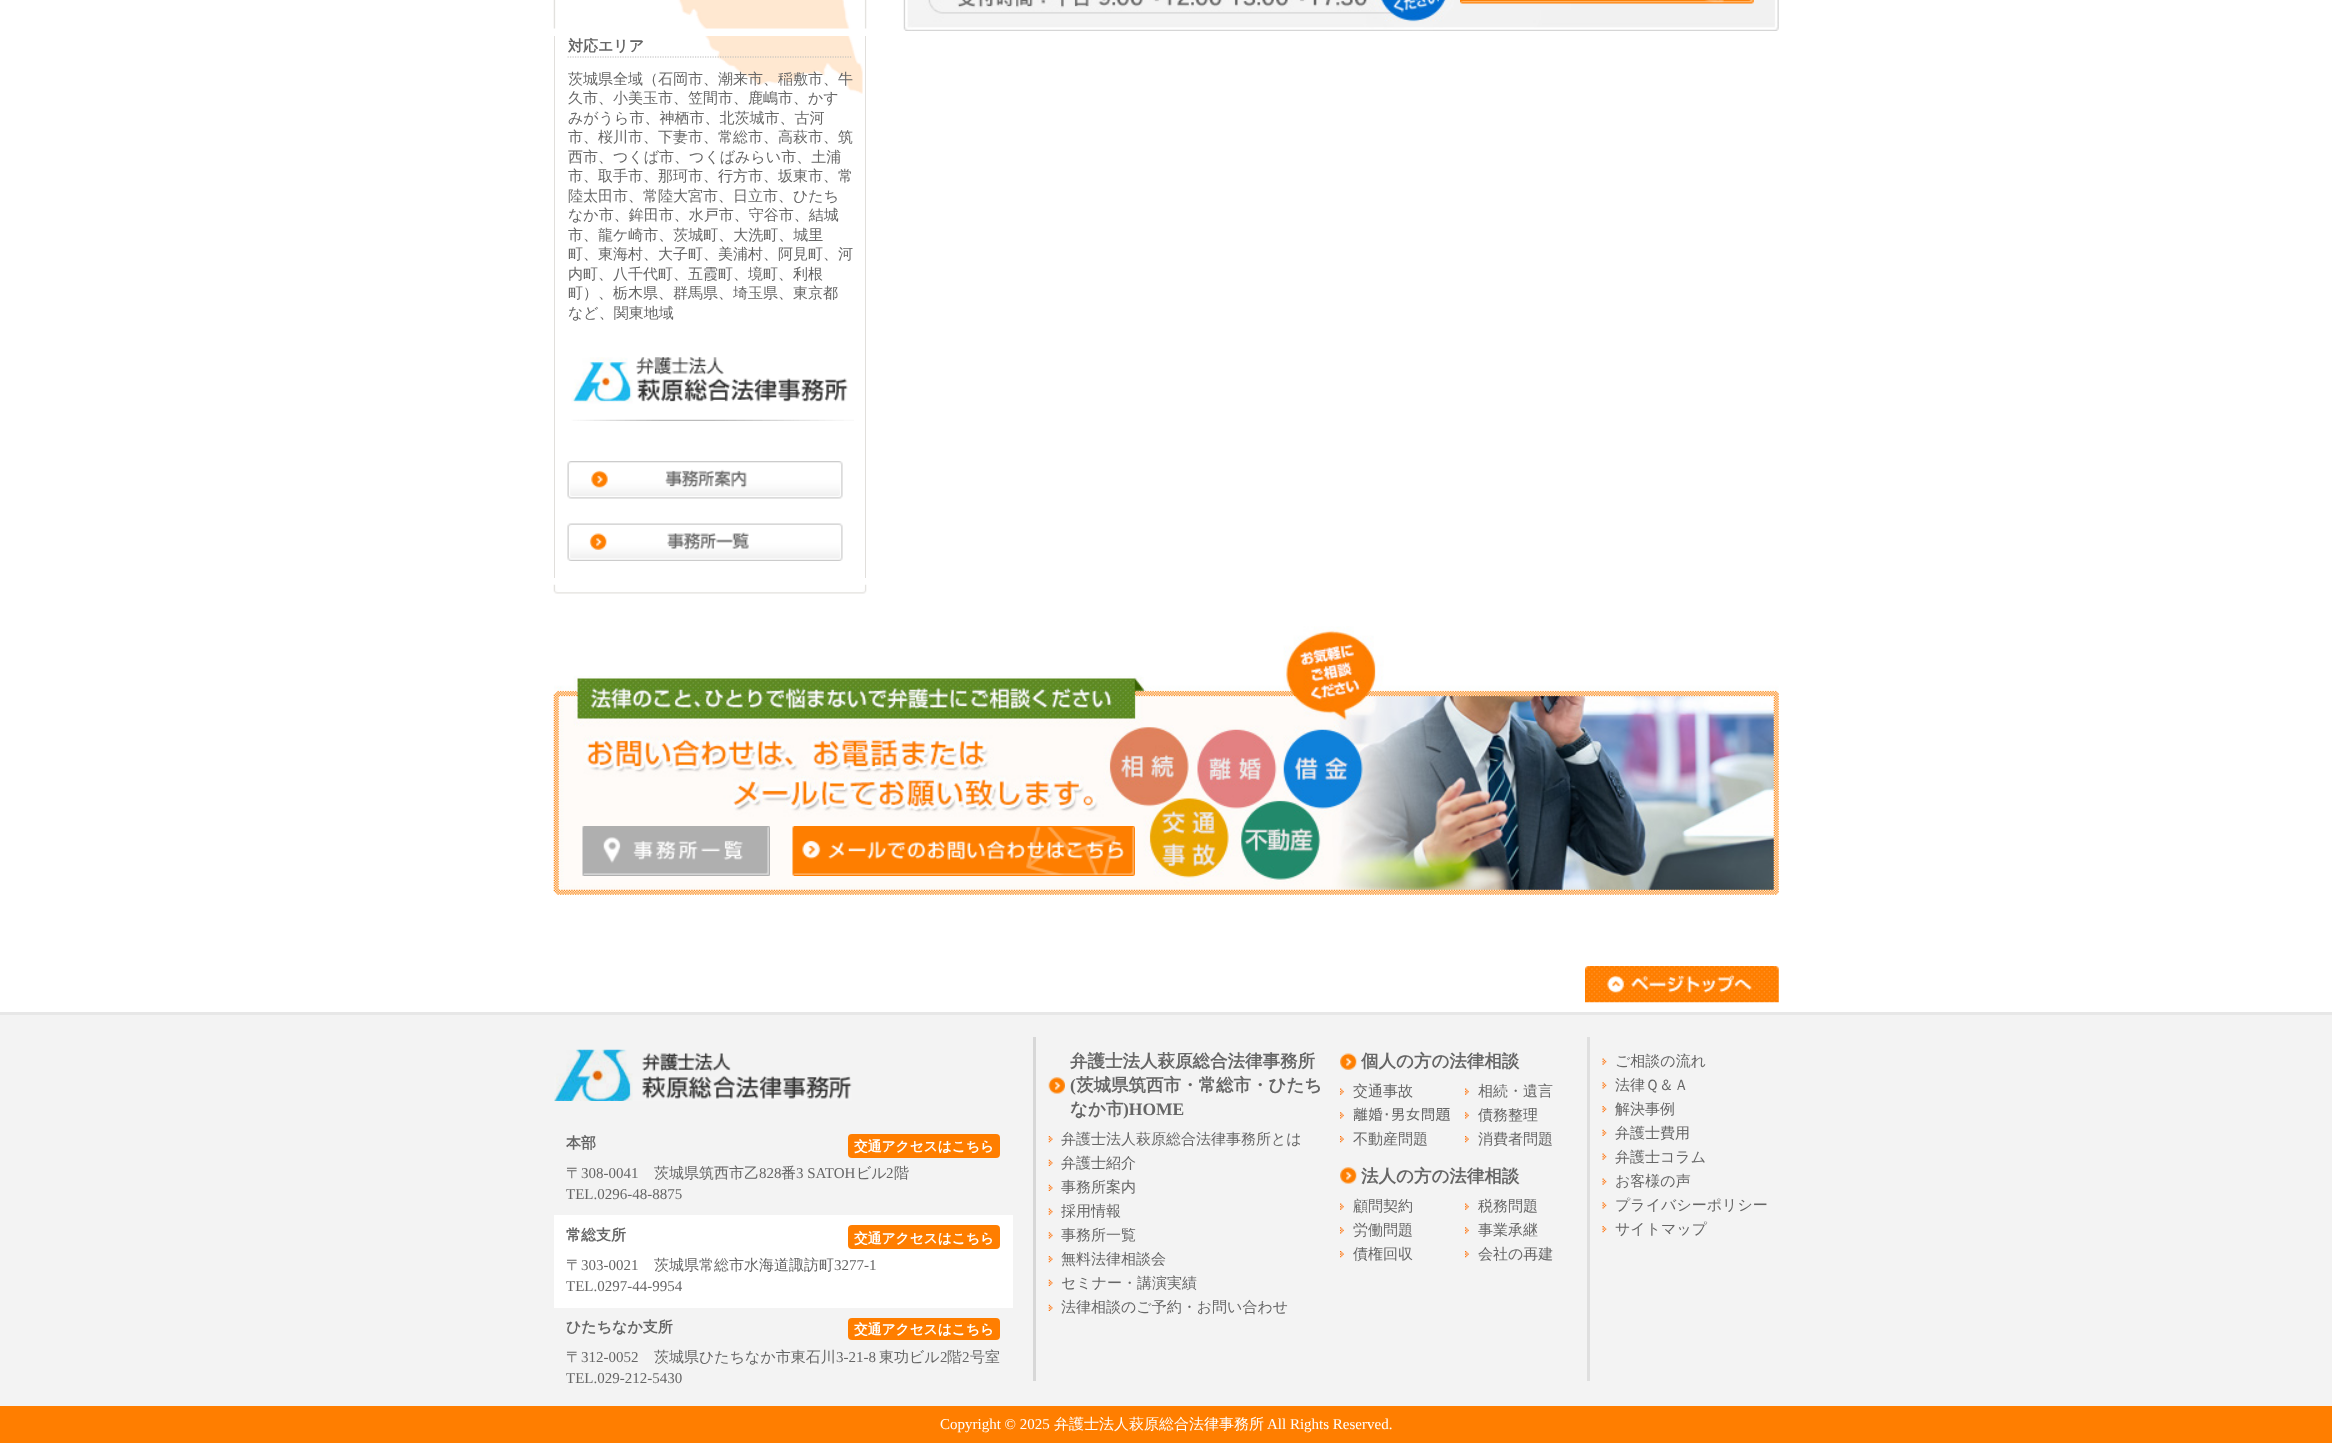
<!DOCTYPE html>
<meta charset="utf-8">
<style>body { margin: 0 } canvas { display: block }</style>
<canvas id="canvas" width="2332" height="1443"></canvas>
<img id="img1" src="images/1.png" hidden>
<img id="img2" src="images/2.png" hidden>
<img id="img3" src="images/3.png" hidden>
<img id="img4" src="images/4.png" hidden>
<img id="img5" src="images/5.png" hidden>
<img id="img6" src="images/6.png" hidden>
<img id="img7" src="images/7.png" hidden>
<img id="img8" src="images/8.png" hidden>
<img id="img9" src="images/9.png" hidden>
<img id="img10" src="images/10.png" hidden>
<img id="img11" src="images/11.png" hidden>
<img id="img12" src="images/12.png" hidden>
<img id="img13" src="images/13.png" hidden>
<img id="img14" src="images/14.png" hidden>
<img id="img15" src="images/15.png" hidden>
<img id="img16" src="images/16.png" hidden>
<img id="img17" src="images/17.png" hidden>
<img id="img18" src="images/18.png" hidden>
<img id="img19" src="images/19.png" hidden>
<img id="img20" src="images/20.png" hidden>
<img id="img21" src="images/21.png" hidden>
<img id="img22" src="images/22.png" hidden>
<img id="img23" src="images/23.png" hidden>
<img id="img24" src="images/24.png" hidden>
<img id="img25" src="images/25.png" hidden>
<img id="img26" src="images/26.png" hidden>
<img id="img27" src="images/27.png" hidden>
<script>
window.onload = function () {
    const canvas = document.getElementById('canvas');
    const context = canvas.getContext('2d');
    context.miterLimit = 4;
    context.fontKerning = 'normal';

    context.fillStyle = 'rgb(255, 255, 255)';
    context.fillRect(0, 0, 2332, 1443);
    context.drawImage(document.getElementById('img1'), 903, 0, 876, 31);
    context.drawImage(document.getElementById('img2'), 1460, 0, 294, 4);
    context.drawImage(document.getElementById('img3'), 553, 0, 314, 29);
    context.drawImage(document.getElementById('img4'), 705, 36, 158, 58);
    context.fillStyle = 'rgb(225, 223, 220)';
    context.fillRect(865, 36, 1, 542);
    context.fillRect(554, 36, 1, 542);
    context.beginPath();
    context.moveTo(567.5, 57);
    context.lineTo(852.5, 57);
    context.strokeStyle = 'rgb(187, 187, 187)';
    context.lineWidth = 1.2;
    context.setLineDash([1.25, 1.25]);
    context.stroke();
    context.drawImage(document.getElementById('img5'), 571, 357, 283, 64);
    context.drawImage(document.getElementById('img6'), 567, 461, 276, 38);
    context.drawImage(document.getElementById('img7'), 567, 523, 276, 38);
    context.drawImage(document.getElementById('img8'), 553, 584, 314, 10);
    context.drawImage(document.getElementById('img9'), 553, 626, 1226, 269);
    context.drawImage(document.getElementById('img10'), 582, 826, 188, 50);
    context.drawImage(document.getElementById('img11'), 792, 826, 343, 50);
    context.drawImage(document.getElementById('img12'), 1585, 966, 194, 37);
    context.fillStyle = 'rgb(243, 243, 243)';
    context.fillRect(0, 1015, 2332, 391);
    context.fillStyle = 'rgb(231, 231, 231)';
    context.fillRect(0, 1012, 2332, 3);
    context.fillStyle = 'rgb(215, 215, 215)';
    context.fillRect(1033, 1037, 3, 344);
    context.drawImage(document.getElementById('img13'), 554, 1049, 298, 52);
    context.fillStyle = 'rgb(255, 126, 0)';
    context.beginPath();
    context.roundRect(848, 1134, 152, 24, 4);
    context.fill();
    context.fillStyle = 'rgb(255, 255, 255)';
    context.fillRect(554, 1215, 459, 93);
    context.fillStyle = 'rgb(255, 126, 0)';
    context.beginPath();
    context.roundRect(848, 1225, 152, 24, 4);
    context.fill();
    context.beginPath();
    context.roundRect(848, 1318, 152, 22, 4);
    context.fill();
    context.drawImage(document.getElementById('img14'), 1048, 1077, 17, 17);
    context.drawImage(document.getElementById('img15'), 1048, 1136, 5, 7);
    context.drawImage(document.getElementById('img16'), 1048, 1159, 5, 7);
    context.drawImage(document.getElementById('img16'), 1048, 1184, 5, 7);
    context.drawImage(document.getElementById('img17'), 1048, 1208, 5, 7);
    context.drawImage(document.getElementById('img18'), 1048, 1232, 5, 7);
    context.drawImage(document.getElementById('img15'), 1048, 1256, 5, 7);
    context.drawImage(document.getElementById('img16'), 1048, 1279, 5, 7);
    context.drawImage(document.getElementById('img16'), 1048, 1304, 5, 7);
    context.fillStyle = 'rgb(223, 223, 223)';
    context.fillRect(1587, 1037, 3, 344);
    context.drawImage(document.getElementById('img19'), 1340, 1053, 17, 17);
    context.drawImage(document.getElementById('img20'), 1340, 1088, 4, 7);
    context.drawImage(document.getElementById('img20'), 1465, 1088, 4, 7);
    context.drawImage(document.getElementById('img21'), 1340, 1112, 4, 7);
    context.drawImage(document.getElementById('img21'), 1465, 1112, 4, 7);
    context.drawImage(document.getElementById('img22'), 1340, 1136, 4, 7);
    context.drawImage(document.getElementById('img22'), 1465, 1136, 4, 7);
    context.drawImage(document.getElementById('img23'), 1340, 1167, 17, 17);
    context.drawImage(document.getElementById('img20'), 1340, 1203, 4, 7);
    context.drawImage(document.getElementById('img20'), 1465, 1203, 4, 7);
    context.drawImage(document.getElementById('img21'), 1340, 1227, 4, 7);
    context.drawImage(document.getElementById('img21'), 1465, 1227, 4, 7);
    context.drawImage(document.getElementById('img22'), 1340, 1251, 4, 7);
    context.drawImage(document.getElementById('img22'), 1465, 1251, 4, 7);
    context.drawImage(document.getElementById('img24'), 1602, 1058, 5, 7);
    context.drawImage(document.getElementById('img25'), 1602, 1082, 5, 7);
    context.drawImage(document.getElementById('img26'), 1602, 1106, 5, 7);
    context.drawImage(document.getElementById('img27'), 1602, 1129, 5, 7);
    context.drawImage(document.getElementById('img24'), 1602, 1153, 5, 7);
    context.drawImage(document.getElementById('img24'), 1602, 1178, 5, 7);
    context.drawImage(document.getElementById('img25'), 1602, 1202, 5, 7);
    context.drawImage(document.getElementById('img26'), 1602, 1226, 5, 7);
    context.fillStyle = 'rgb(255, 126, 0)';
    context.fillRect(0, 1406, 2332, 37);
    context.font = 'bold 15px WenQuanYi Zen Hei';
    context.fillStyle = 'rgb(102, 102, 102)';
    context.fillText('対応エリア', 568, 51);
    context.font = '500 15px WenQuanYi Zen Hei';
    context.fillText('茨城県全域（石岡市、潮来市、稲敷市、牛', 568, 84);
    context.fillText('久市、小美玉市、笠間市、鹿嶋市、かす', 568, 103);
    context.fillText('みがうら市、神栖市、北茨城市、古河', 568, 123);
    context.fillText('市、桜川市、下妻市、常総市、高萩市、筑', 568, 142);
    context.fillText('西市、つくば市、つくばみらい市、土浦', 568, 162);
    context.fillText('市、取手市、那珂市、行方市、坂東市、常', 568, 181);
    context.fillText('陸太田市、常陸大宮市、日立市、ひたち', 568, 201);
    context.fillText('なか市、鉾田市、水戸市、守谷市、結城', 568, 220);
    context.fillText('市、龍ケ崎市、茨城町、大洗町、城里', 568, 240);
    context.fillText('町、東海村、大子町、美浦村、阿見町、河', 568, 259);
    context.fillText('内町、八千代町、五霞町、境町、利根', 568, 279);
    context.fillText('町）、栃木県、群馬県、埼玉県、東京都', 568, 298);
    context.fillText('など、関東地域', 568, 318);
    context.font = 'bold 15px WenQuanYi Zen Hei';
    context.fillText('本部', 566, 1148);
    context.font = 'bold 13.75px WenQuanYi Zen Hei';
    context.fillStyle = 'rgb(255, 255, 255)';
    context.fillText('交通アクセスはこちら', 854, 1151);
    context.font = '500 15px WenQuanYi Zen Hei';
    context.fillStyle = 'rgb(102, 102, 102)';
    context.fillText('〒', 566, 1178);
    context.font = '15px Liberation Serif';
    context.fillText('308-0041', 581, 1178);
    context.font = '500 15px WenQuanYi Zen Hei';
    context.fillText('茨城県筑西市乙', 654, 1178);
    context.font = '15px Liberation Serif';
    context.fillText('828', 759, 1178);
    context.font = '500 15px WenQuanYi Zen Hei';
    context.fillText('番', 781, 1178);
    context.font = '15px Liberation Serif';
    context.fillText('3 SATOH', 796, 1178);
    context.font = '500 15px WenQuanYi Zen Hei';
    context.fillText('ビル', 856, 1178);
    context.font = '15px Liberation Serif';
    context.fillText('2', 886, 1178);
    context.font = '500 15px WenQuanYi Zen Hei';
    context.fillText('階', 894, 1178);
    context.font = '15px Liberation Serif';
    context.fillText('TEL.0296-48-8875', 566, 1199);
    context.font = 'bold 15px WenQuanYi Zen Hei';
    context.fillText('常総支所', 566, 1240);
    context.font = 'bold 13.75px WenQuanYi Zen Hei';
    context.fillStyle = 'rgb(255, 255, 255)';
    context.fillText('交通アクセスはこちら', 854, 1243);
    context.font = '500 15px WenQuanYi Zen Hei';
    context.fillStyle = 'rgb(102, 102, 102)';
    context.fillText('〒', 566, 1270);
    context.font = '15px Liberation Serif';
    context.fillText('303-0021', 581, 1270);
    context.font = '500 15px WenQuanYi Zen Hei';
    context.fillText('茨城県常総市水海道諏訪町', 654, 1270);
    context.font = '15px Liberation Serif';
    context.fillText('3277-1', 834, 1270);
    context.fillText('TEL.0297-44-9954', 566, 1291);
    context.font = 'bold 15px WenQuanYi Zen Hei';
    context.fillText('ひたちなか支所', 566, 1332);
    context.font = 'bold 13.75px WenQuanYi Zen Hei';
    context.fillStyle = 'rgb(255, 255, 255)';
    context.fillText('交通アクセスはこちら', 854, 1334);
    context.font = '500 15px WenQuanYi Zen Hei';
    context.fillStyle = 'rgb(102, 102, 102)';
    context.fillText('〒', 566, 1362);
    context.font = '15px Liberation Serif';
    context.fillText('312-0052', 581, 1362);
    context.font = '500 15px WenQuanYi Zen Hei';
    context.fillText('茨城県ひたちなか市東石川', 654, 1362);
    context.font = '15px Liberation Serif';
    context.fillText('3-21-8', 836, 1362);
    context.font = '500 15px WenQuanYi Zen Hei';
    context.fillText('東功ビル', 879, 1362);
    context.font = '15px Liberation Serif';
    context.fillText('2', 940, 1362);
    context.font = '500 15px WenQuanYi Zen Hei';
    context.fillText('階', 947, 1362);
    context.font = '15px Liberation Serif';
    context.fillText('2', 962, 1362);
    context.font = '500 15px WenQuanYi Zen Hei';
    context.fillText('号室', 970, 1362);
    context.font = '15px Liberation Serif';
    context.fillText('TEL.029-212-5430', 566, 1383);
    context.font = 'bold 17.5px WenQuanYi Zen Hei';
    context.fillText('弁護士法人萩原総合法律事務所', 1070, 1067);
    context.font = 'bold 17.5px Liberation Serif';
    context.fillText('(', 1070, 1091);
    context.font = 'bold 17.5px WenQuanYi Zen Hei';
    context.fillText('茨城県筑西市・常総市・ひたち', 1076, 1091);
    context.fillText('なか市', 1070, 1115);
    context.font = 'bold 17.5px Liberation Serif';
    context.fillText(')HOME', 1123, 1115);
    context.font = '500 15px WenQuanYi Zen Hei';
    context.fillText('弁護士法人萩原総合法律事務所とは', 1061, 1144);
    context.fillText('弁護士紹介', 1061, 1168);
    context.fillText('事務所案内', 1061, 1192);
    context.fillText('採用情報', 1061, 1216);
    context.fillText('事務所一覧', 1061, 1240);
    context.fillText('無料法律相談会', 1061, 1264);
    context.fillText('セミナー・講演実績', 1061, 1288);
    context.fillText('法律相談のご予約・お問い合わせ', 1061, 1312);
    context.font = 'bold 17.5px WenQuanYi Zen Hei';
    context.fillText('個人の方の法律相談', 1361, 1067);
    context.font = '500 15px WenQuanYi Zen Hei';
    context.fillText('交通事故', 1353, 1096);
    context.fillText('相続・遺言', 1478, 1096);
    context.font = '15px IPAPGothic';
    context.fillText('離婚･男女問題', 1353, 1120);
    context.font = '500 15px WenQuanYi Zen Hei';
    context.fillText('債務整理', 1478, 1120);
    context.fillText('不動産問題', 1353, 1144);
    context.fillText('消費者問題', 1478, 1144);
    context.font = 'bold 17.5px WenQuanYi Zen Hei';
    context.fillText('法人の方の法律相談', 1361, 1182);
    context.font = '500 15px WenQuanYi Zen Hei';
    context.fillText('顧問契約', 1353, 1211);
    context.fillText('税務問題', 1478, 1211);
    context.fillText('労働問題', 1353, 1235);
    context.fillText('事業承継', 1478, 1235);
    context.fillText('債権回収', 1353, 1259);
    context.fillText('会社の再建', 1478, 1259);
    context.fillText('ご相談の流れ', 1615, 1066);
    context.fillText('法律Ｑ＆Ａ', 1615, 1090);
    context.fillText('解決事例', 1615, 1114);
    context.fillText('弁護士費用', 1615, 1138);
    context.fillText('弁護士コラム', 1615, 1162);
    context.fillText('お客様の声', 1615, 1186);
    context.fillText('プライバシーポリシー', 1615, 1210);
    context.fillText('サイトマップ', 1615, 1234);
    context.font = '15px Liberation Serif';
    context.fillStyle = 'rgb(255, 255, 255)';
    context.fillText('Copyright © 2025', 940, 1429);
    context.font = '500 15px WenQuanYi Zen Hei';
    context.fillText('弁護士法人萩原総合法律事務所', 1054, 1429);
    context.font = '15px Liberation Serif';
    context.fillText('All Rights Reserved.', 1267, 1429);
};
</script>
